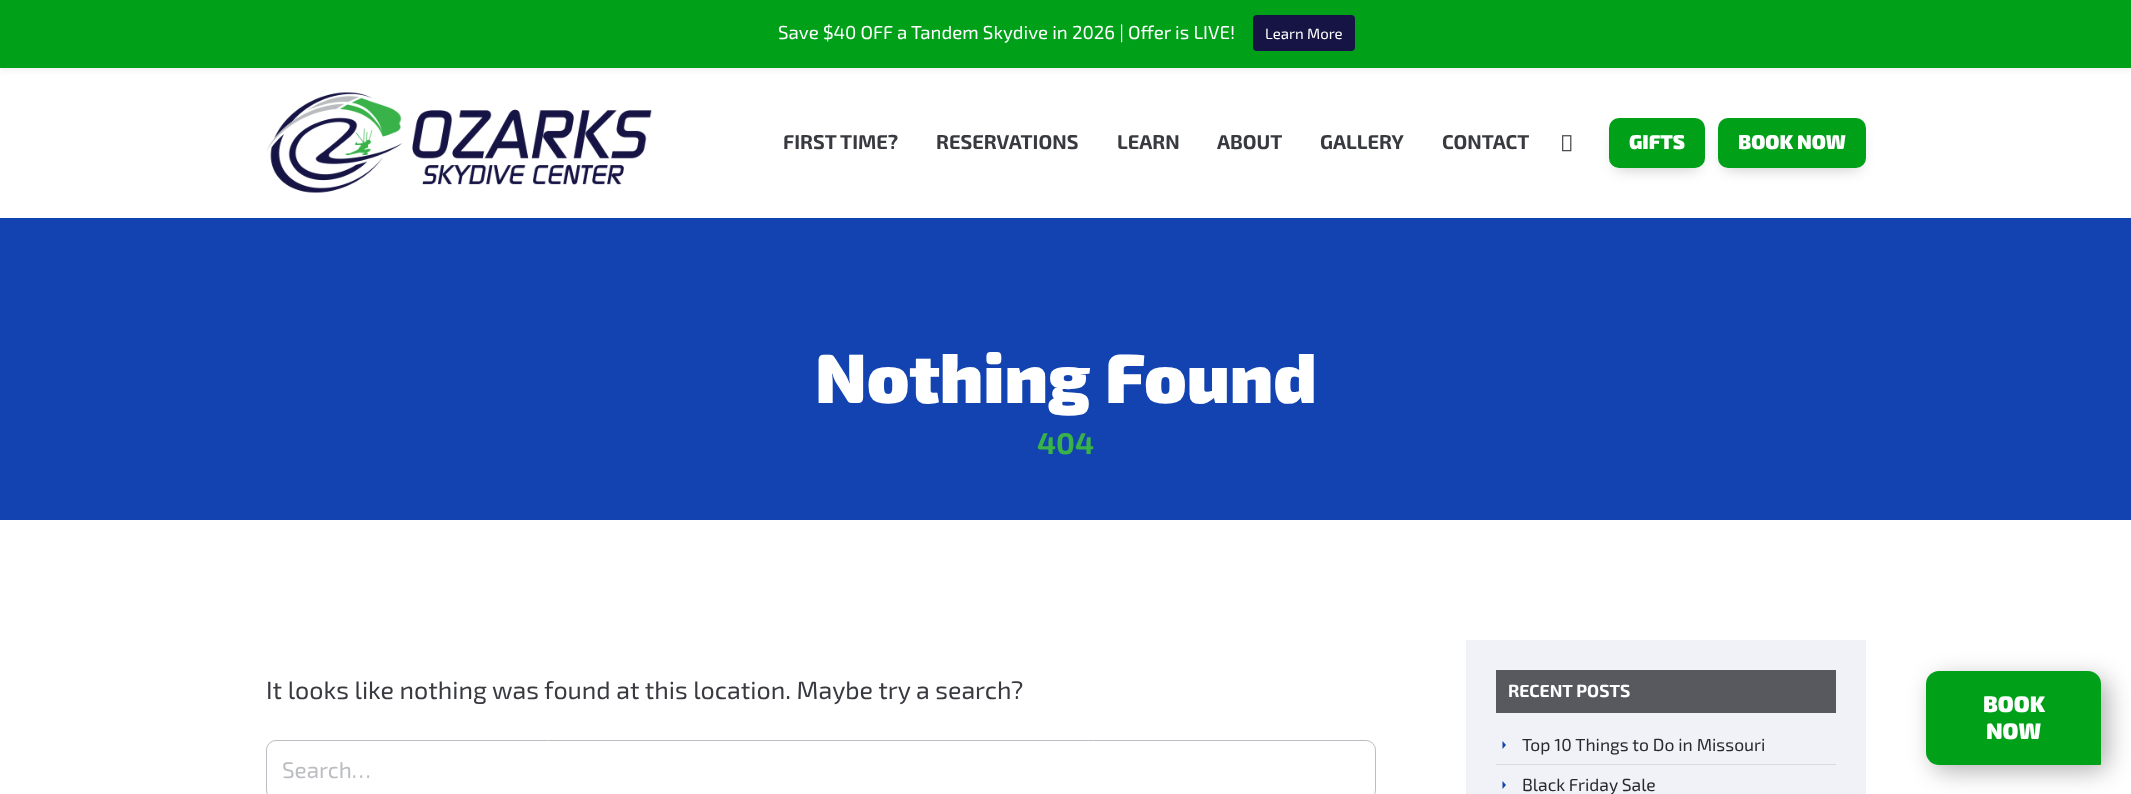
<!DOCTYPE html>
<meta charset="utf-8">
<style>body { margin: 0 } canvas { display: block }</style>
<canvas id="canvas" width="2131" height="794"></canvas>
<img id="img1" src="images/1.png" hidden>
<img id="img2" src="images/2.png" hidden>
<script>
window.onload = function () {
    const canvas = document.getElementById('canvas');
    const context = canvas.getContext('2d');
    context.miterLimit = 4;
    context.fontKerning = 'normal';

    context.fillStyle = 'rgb(255, 255, 255)';
    context.fillRect(0, 0, 2131, 794);
    context.fillStyle = 'rgba(0, 0, 0, 0.05)';
    context.filter = 'blur(2.5px)';
    context.beginPath();
    context.rect(0, 4, 2131, 67);
    context.fill();
    context.filter = 'none';
    context.fillStyle = 'rgb(0, 161, 25)';
    context.fillRect(0, 0, 2131, 68);
    context.fillStyle = 'rgb(22, 20, 68)';
    context.beginPath();
    context.roundRect(1253, 15, 102, 36, 4);
    context.fill();
    context.drawImage(document.getElementById('img1'), 266, 92, 386, 101);
    context.drawImage(document.getElementById('img2'), 1562, 135, 10, 17);
    context.fillStyle = 'rgba(0, 0, 0, 0.24)';
    context.filter = 'blur(7.5px)';
    context.beginPath();
    context.roundRect(1616, 133, 82, 35, 2.5);
    context.fill();
    context.filter = 'none';
    context.fillStyle = 'rgb(0, 161, 25)';
    context.beginPath();
    context.roundRect(1609, 118, 96, 50, 10);
    context.fill();
    context.fillStyle = 'rgba(0, 0, 0, 0.24)';
    context.filter = 'blur(7.5px)';
    context.beginPath();
    context.roundRect(1725, 133, 134, 35, 2.5);
    context.fill();
    context.filter = 'none';
    context.fillStyle = 'rgb(0, 161, 25)';
    context.beginPath();
    context.roundRect(1718, 118, 148, 50, 10);
    context.fill();
    context.fillStyle = 'rgb(18, 67, 176)';
    context.fillRect(0, 218, 2131, 302);
    context.beginPath();
    context.roundRect(266.5, 740.5, 1109, 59, 9.5);
    context.strokeStyle = 'rgb(188, 189, 194)';
    context.stroke();
    context.fillStyle = 'rgb(241, 242, 247)';
    context.fillRect(1466, 640, 400, 154);
    context.fillStyle = 'rgb(88, 89, 94)';
    context.fillRect(1496, 670, 340, 43);
    context.fillStyle = 'rgb(18, 67, 176)';
    context.beginPath();
    context.moveTo(1502.5, 749);
    context.lineTo(1502.5, 741);
    context.lineTo(1506, 745);
    context.closePath();
    context.fill();
    context.fillStyle = 'rgb(217, 218, 222)';
    context.fillRect(1496, 764, 340, 1);
    context.fillStyle = 'rgb(18, 67, 176)';
    context.beginPath();
    context.moveTo(1502.5, 789);
    context.lineTo(1502.5, 781);
    context.lineTo(1506, 785);
    context.closePath();
    context.fill();
    context.fillStyle = 'rgba(0, 0, 0, 0.3)';
    context.filter = 'blur(12.5px)';
    context.beginPath();
    context.roundRect(1933, 678, 175, 93, 13);
    context.fill();
    context.filter = 'none';
    context.fillStyle = 'rgb(0, 161, 25)';
    context.beginPath();
    context.roundRect(1926, 671, 175, 94, [13, 13, 1, 13]);
    context.fill();
    context.font = '18.75px "Exo 2"';
    context.fillStyle = 'rgb(255, 255, 255)';
    context.fillText('Save $40 OFF a Tandem Skydive in 2026 | Offer is LIVE!', 778, 39);
    context.font = '15px "Exo 2"';
    context.fillText('Learn More', 1265, 39);
    context.font = 'bold 20px "Exo 2"';
    context.fillStyle = 'rgb(57, 58, 64)';
    context.fillText('FIRST TIME?', 783, 149);
    context.fillText('RESERVATIONS', 936, 149);
    context.fillText('LEARN', 1117, 149);
    context.fillText('ABOUT', 1217, 149);
    context.fillText('GALLERY', 1320, 149);
    context.fillText('CONTACT', 1442, 149);
    context.font = '900 20px "Exo 2"';
    context.fillStyle = 'rgb(255, 255, 255)';
    context.fillText('GIFTS', 1629, 149);
    context.fillText('BOOK NOW', 1738, 149);
    context.font = '900 70px "Exo 2"';
    context.fillText('Nothing Found', 815, 403);
    context.font = 'bold 30px "Exo 2"';
    context.fillStyle = 'rgb(56, 178, 73)';
    context.fillText('404', 1037, 454);
    context.font = '25px "Exo 2"';
    context.fillStyle = 'rgb(57, 58, 64)';
    context.fillText('It looks like nothing was found at this location. Maybe try a search?', 266, 699);
    context.font = '22.5px "Exo 2"';
    context.fillStyle = 'rgb(188, 189, 194)';
    context.fillText('Search…', 282, 778);
    context.font = 'bold 17.5px "Exo 2"';
    context.fillStyle = 'rgb(255, 255, 255)';
    context.fillText('RECENT POSTS', 1508, 697);
    context.font = '17.5px "Exo 2"';
    context.fillStyle = 'rgb(40, 40, 45)';
    context.fillText('Top 10 Things to Do in Missouri', 1522, 751);
    context.fillText('Black Friday Sale', 1522, 791);
    context.font = '900 22.5px "Exo 2"';
    context.fillStyle = 'rgb(255, 255, 255)';
    context.fillText('BOOK', 1983, 712);
    context.fillText('NOW', 1986, 739);
};
</script>
